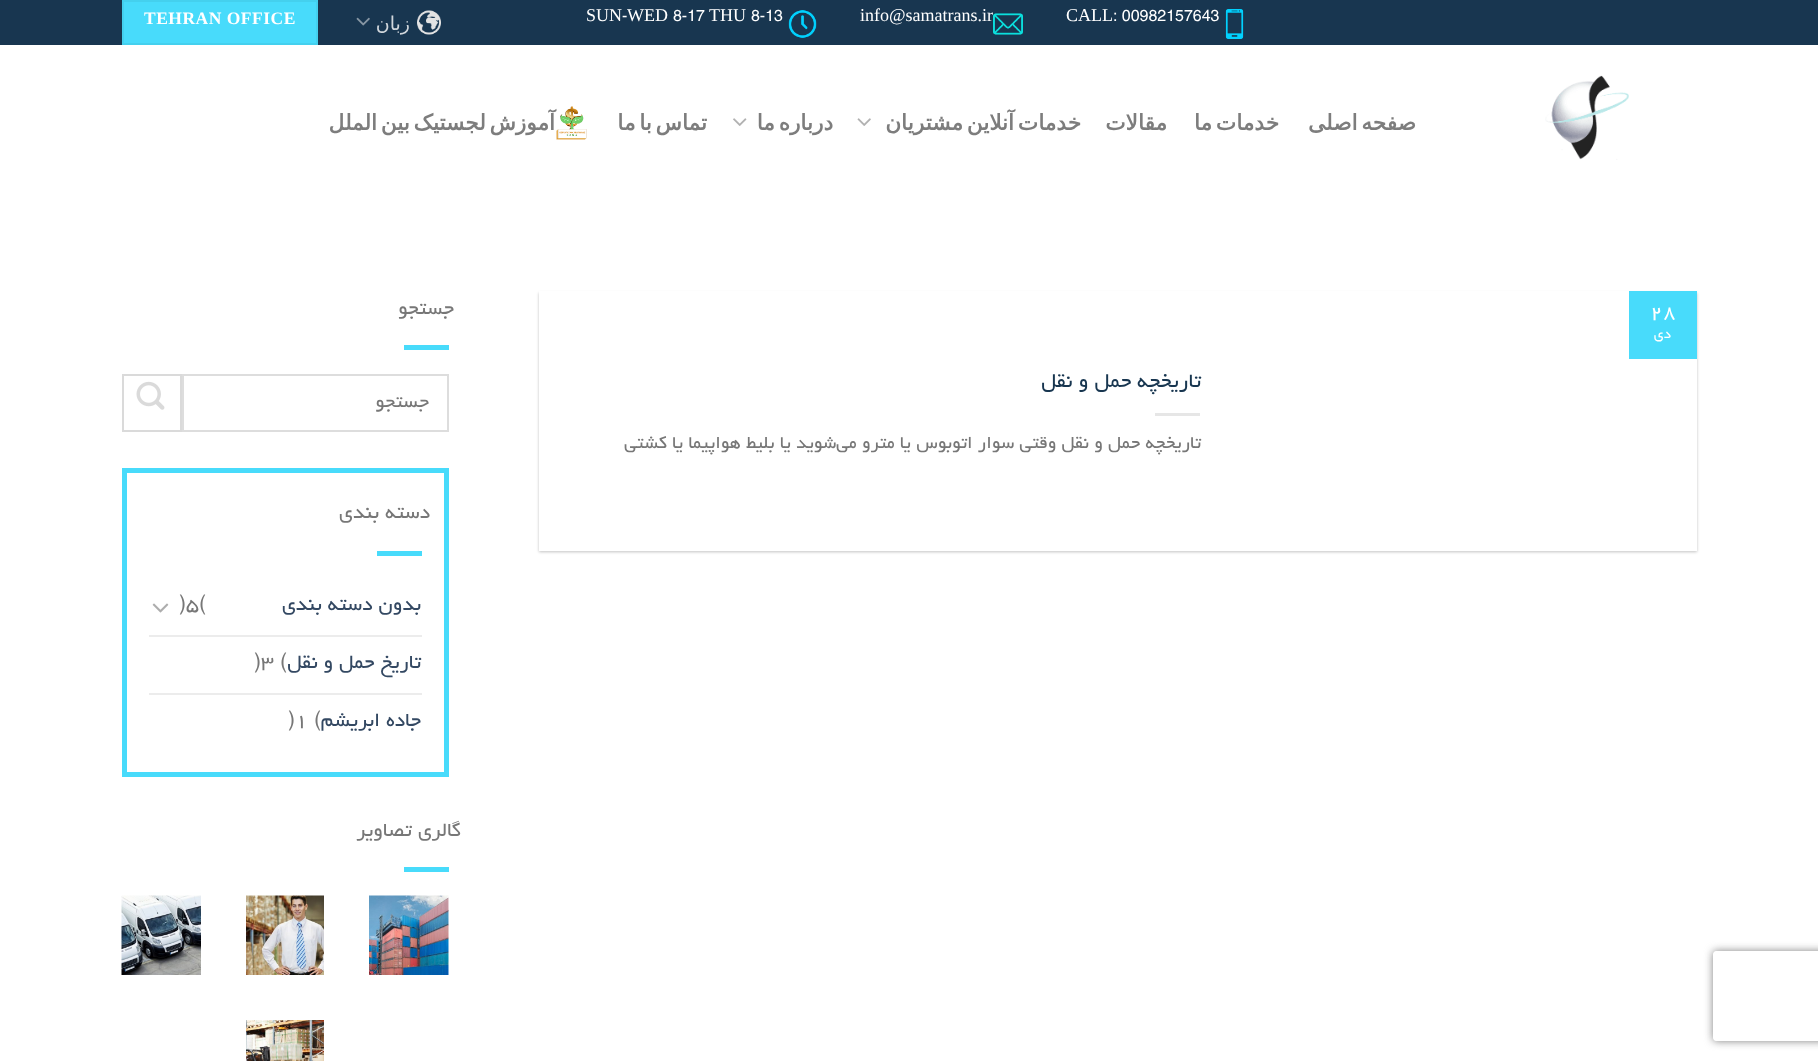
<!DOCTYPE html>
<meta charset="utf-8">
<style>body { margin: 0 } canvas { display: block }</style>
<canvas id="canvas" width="1818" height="1061"></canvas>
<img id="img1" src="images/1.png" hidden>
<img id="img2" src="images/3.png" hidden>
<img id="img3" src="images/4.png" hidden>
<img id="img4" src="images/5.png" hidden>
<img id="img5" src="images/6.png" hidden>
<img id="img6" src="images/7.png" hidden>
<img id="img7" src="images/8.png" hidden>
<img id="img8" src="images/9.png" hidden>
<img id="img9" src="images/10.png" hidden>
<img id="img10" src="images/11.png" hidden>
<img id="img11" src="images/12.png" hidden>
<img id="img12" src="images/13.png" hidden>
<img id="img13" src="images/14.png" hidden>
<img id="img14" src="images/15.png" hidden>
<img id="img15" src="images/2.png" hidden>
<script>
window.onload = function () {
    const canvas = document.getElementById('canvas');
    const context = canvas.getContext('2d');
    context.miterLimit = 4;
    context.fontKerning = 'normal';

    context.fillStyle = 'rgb(255, 255, 255)';
    context.fillRect(0, 0, 1818, 1061);
    context.fillStyle = 'rgb(24, 54, 80)';
    context.fillRect(0, 0, 1818, 45);
    context.drawImage(document.getElementById('img1'), 1225, 9, 19, 30);
    context.drawImage(document.getElementById('img2'), 788, 10, 29, 28);
    context.drawImage(document.getElementById('img3'), 417, 10, 24, 25);
    context.drawImage(document.getElementById('img4'), 356, 17, 14, 9);
    context.fillStyle = 'rgb(72, 219, 251)';
    context.beginPath();
    context.rect(123, 1, 194, 43);
    context.fill();
    context.strokeStyle = 'rgb(68, 208, 238)';
    context.lineWidth = 2;
    context.stroke();
    context.drawImage(document.getElementById('img5'), 1545, 75, 84, 85);
    context.drawImage(document.getElementById('img6'), 857, 118, 14, 8);
    context.drawImage(document.getElementById('img7'), 733, 118, 14, 8);
    context.drawImage(document.getElementById('img8'), 556, 106, 31, 34);
    context.fillStyle = 'rgba(0, 0, 0, 0.24)';
    context.filter = 'blur(1.5px)';
    context.beginPath();
    context.rect(539, 293, 1158, 259);
    context.fill();
    context.filter = 'none';
    context.fillStyle = 'rgb(255, 255, 255)';
    context.fillRect(539, 291, 1158, 260);
    context.fillStyle = 'rgb(72, 219, 251)';
    context.fillRect(1629, 291, 68, 68);
    context.fillStyle = 'rgb(230, 230, 230)';
    context.fillRect(1155, 413, 45, 3);
    context.fillStyle = 'rgb(72, 219, 251)';
    context.fillRect(404, 345, 45, 5);
    context.strokeStyle = 'rgb(221, 221, 221)';
    context.strokeRect(183, 375, 265, 56);
    context.strokeStyle = 'rgb(218, 218, 218)';
    context.strokeRect(123, 375, 58, 56);
    context.drawImage(document.getElementById('img9'), 136, 381, 29, 29);
    context.strokeStyle = 'rgb(72, 219, 251)';
    context.lineWidth = 5;
    context.strokeRect(124.5, 470.5, 322, 304);
    context.fillRect(377, 551, 45, 5);
    context.drawImage(document.getElementById('img10'), 152, 603, 17, 10);
    context.fillStyle = 'rgb(236, 236, 236)';
    context.fillRect(149, 635, 273, 2);
    context.fillRect(149, 693, 273, 2);
    context.fillStyle = 'rgb(72, 219, 251)';
    context.fillRect(404, 867, 45, 5);
    context.drawImage(document.getElementById('img11'), 369, 895, 80, 80);
    context.drawImage(document.getElementById('img12'), 246, 895, 78, 80);
    context.drawImage(document.getElementById('img13'), 121, 895, 80, 80);
    context.drawImage(document.getElementById('img14'), 246, 1020, 78, 41);
    context.save();
    context.beginPath();
    context.moveTo(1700, 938);
    context.lineTo(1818, 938);
    context.lineTo(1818, 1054);
    context.lineTo(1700, 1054);
    context.closePath();
    context.moveTo(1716, 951);
    context.lineTo(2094, 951);
    context.bezierCurveTo(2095.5, 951, 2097, 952.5, 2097, 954);
    context.lineTo(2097, 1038);
    context.bezierCurveTo(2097, 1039.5, 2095.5, 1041, 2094, 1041);
    context.lineTo(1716, 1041);
    context.bezierCurveTo(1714.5, 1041, 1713, 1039.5, 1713, 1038);
    context.lineTo(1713, 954);
    context.bezierCurveTo(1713, 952.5, 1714.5, 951, 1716, 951);
    context.closePath();
    context.clip('evenodd');
    context.fillStyle = 'rgb(128, 128, 128)';
    context.filter = 'blur(4px)';
    context.beginPath();
    context.roundRect(1713, 951, 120, 90, 3);
    context.fill();
    context.filter = 'none';
    context.restore();
    context.font = '18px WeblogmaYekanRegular';
    context.fillStyle = 'rgb(255, 255, 255)';
    context.fillText(': 00982157643', 1113, 21);
    context.font = '18px Liberation Serif';
    context.fillText('CALL', 1066, 21);
    context.fillText('info@samatrans.ir', 860, 21);
    context.drawImage(document.getElementById('img15'), 993, 13, 30, 22);
    context.font = '18px WeblogmaYekanRegular';
    context.fillText('8-13', 751, 21);
    context.font = '18px Liberation Serif';
    context.fillText('THU', 709, 21);
    context.font = '18px WeblogmaYekanRegular';
    context.fillText('8-17', 673, 21);
    context.font = '18px Liberation Serif';
    context.fillText('WED', 627, 21);
    context.font = '18px WeblogmaYekanRegular';
    context.fillText('-', 622, 21);
    context.font = '18px Liberation Serif';
    context.fillText('SUN', 586, 21);
    context.direction = 'rtl';
    context.font = '19px DejaVu Sans';
    context.fillStyle = 'rgb(209, 215, 220)';
    context.fillText('زبان', 410, 30);
    context.letterSpacing = '0.5px';
    context.direction = 'ltr';
    context.font = 'bold 17.5px Liberation Serif';
    context.fillStyle = 'rgb(255, 255, 255)';
    context.fillText('TEHRAN OFFICE', 144, 24);
    context.letterSpacing = '0.4px';
    context.wordSpacing = '-3.5px';
    context.direction = 'rtl';
    context.font = 'bold 21.6px DejaVu Sans';
    context.fillStyle = 'rgb(125, 125, 125)';
    context.fillText('صفحه اصلی', 1416, 130);
    context.fillText('خدمات ما', 1279, 130);
    context.wordSpacing = '0px';
    context.fillText('مقالات', 1167, 130);
    context.wordSpacing = '-3.5px';
    context.fillText('خدمات آنلاین مشتریان', 1081, 130);
    context.fillText('درباره ما', 833, 130);
    context.fillText('تماس با ما', 707, 130);
    context.fillText('آموزش لجستیک بین الملل', 555, 130);
    context.letterSpacing = '0px';
    context.wordSpacing = '0px';
    context.direction = 'ltr';
    context.font = '24px WeblogmaYekanRegular';
    context.fillStyle = 'rgb(255, 255, 255)';
    context.fillText('۲۸', 1650, 318);
    context.direction = 'rtl';
    context.font = '17px WeblogmaYekanRegular';
    context.fillText('دی', 1671, 338);
    context.font = '24.75px WeblogmaYekanRegular';
    context.fillStyle = 'rgb(24, 54, 80)';
    context.fillText('تاریخچه حمل و نقل', 1201, 387);
    context.font = '21.6px WeblogmaYekanRegular';
    context.fillStyle = 'rgb(119, 119, 119)';
    context.fillText('تاریخچه حمل و نقل وقتی سوار اتوبوس یا مترو می‌شوید یا بلیط هواپیما یا کشتی', 1201, 448);
    context.letterSpacing = '1.25px';
    context.font = '24px WeblogmaYekanRegular';
    context.fillText('جستجو', 454, 314);
    context.letterSpacing = '0px';
    context.font = '23px WeblogmaYekanRegular';
    context.fillText('جستجو', 429, 407);
    context.letterSpacing = '1.25px';
    context.wordSpacing = '-1px';
    context.font = '24px WeblogmaYekanRegular';
    context.fillText('دسته بندی', 430, 518);
    context.letterSpacing = '0px';
    context.wordSpacing = '0px';
    context.fillStyle = 'rgb(51, 72, 98)';
    context.fillText('بدون دسته بندی', 421, 610);
    context.direction = 'ltr';
    context.fillStyle = 'rgb(119, 119, 119)';
    context.fillText(')۵(', 179, 610);
    context.direction = 'rtl';
    context.fillStyle = 'rgb(51, 72, 98)';
    context.fillText('تاریخ حمل و نقل', 421, 668);
    context.direction = 'ltr';
    context.fillStyle = 'rgb(119, 119, 119)';
    context.fillText(')۳ (', 254, 668);
    context.direction = 'rtl';
    context.fillStyle = 'rgb(51, 72, 98)';
    context.fillText('جاده ابریشم', 421, 726);
    context.direction = 'ltr';
    context.fillStyle = 'rgb(119, 119, 119)';
    context.fillText(')۱ (', 288, 726);
    context.letterSpacing = '1.25px';
    context.wordSpacing = '-1px';
    context.direction = 'rtl';
    context.fillText('گالری تصاویر', 461, 836);
};
</script>
